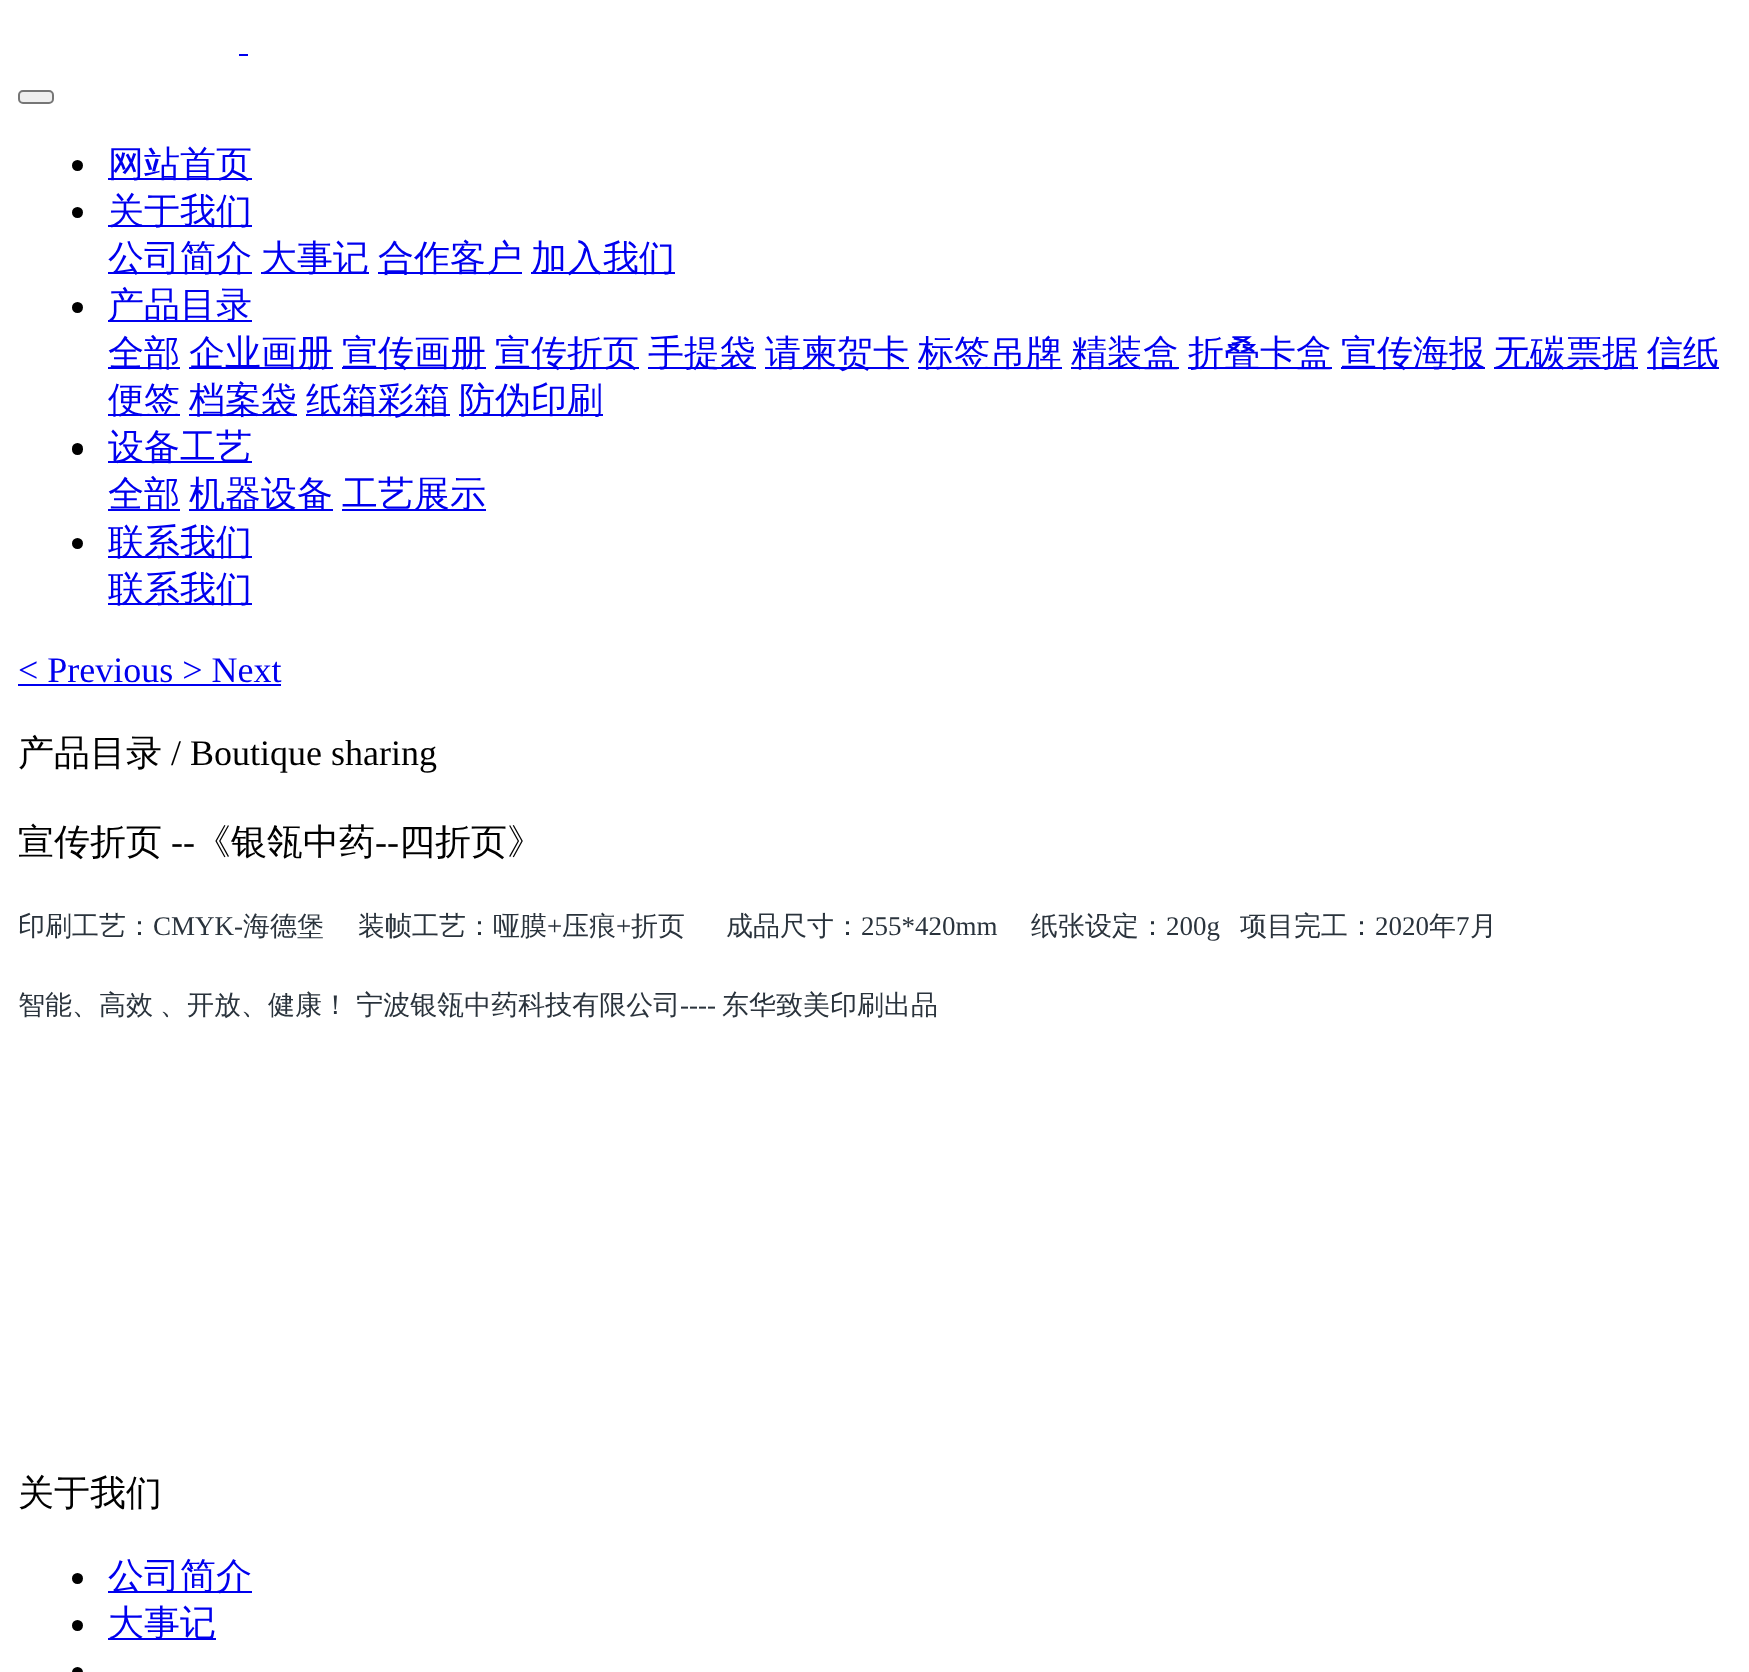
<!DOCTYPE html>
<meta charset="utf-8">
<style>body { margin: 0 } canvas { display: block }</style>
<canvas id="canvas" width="1749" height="1672"></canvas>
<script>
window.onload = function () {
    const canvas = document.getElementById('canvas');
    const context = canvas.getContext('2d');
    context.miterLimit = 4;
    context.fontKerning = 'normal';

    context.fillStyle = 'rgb(255, 255, 255)';
    context.fillRect(0, 0, 1749, 1672);
    context.fillStyle = 'rgb(0, 0, 238)';
    context.fillRect(239, 54, 9, 2);
    context.fillStyle = 'rgb(239, 239, 239)';
    context.beginPath();
    context.roundRect(19, 91, 34, 12, 4);
    context.fill();
    context.strokeStyle = 'rgb(118, 118, 118)';
    context.lineWidth = 2;
    context.stroke();
    context.fillStyle = 'rgb(0, 0, 0)';
    context.beginPath();
    context.arc(77.5, 165.5, 5.5, 0, 2 * Math.PI);
    context.fill();
    context.fillStyle = 'rgb(0, 0, 238)';
    context.fillRect(108, 178, 144, 2);
    context.fillStyle = 'rgb(0, 0, 0)';
    context.beginPath();
    context.arc(77.5, 212.5, 5.5, 0, 2 * Math.PI);
    context.fill();
    context.fillStyle = 'rgb(0, 0, 238)';
    context.fillRect(108, 225, 144, 2);
    context.fillRect(108, 272, 144, 2);
    context.fillRect(261, 272, 108, 2);
    context.fillRect(378, 272, 144, 2);
    context.fillRect(531, 272, 144, 2);
    context.fillStyle = 'rgb(0, 0, 0)';
    context.beginPath();
    context.arc(77.5, 307.5, 5.5, 0, 2 * Math.PI);
    context.fill();
    context.fillStyle = 'rgb(0, 0, 238)';
    context.fillRect(108, 320, 144, 2);
    context.fillRect(108, 367, 72, 2);
    context.fillRect(189, 367, 144, 2);
    context.fillRect(342, 367, 144, 2);
    context.fillRect(495, 367, 144, 2);
    context.fillRect(648, 367, 108, 2);
    context.fillRect(765, 367, 144, 2);
    context.fillRect(918, 367, 144, 2);
    context.fillRect(1071, 367, 108, 2);
    context.fillRect(1188, 367, 144, 2);
    context.fillRect(1341, 367, 144, 2);
    context.fillRect(1494, 367, 144, 2);
    context.fillRect(1647, 367, 72, 2);
    context.fillRect(108, 414, 72, 2);
    context.fillRect(189, 414, 108, 2);
    context.fillRect(306, 414, 144, 2);
    context.fillRect(459, 414, 144, 2);
    context.fillStyle = 'rgb(0, 0, 0)';
    context.beginPath();
    context.roundRect(72, 443, 11, 12, 5.5);
    context.fill();
    context.fillStyle = 'rgb(0, 0, 238)';
    context.fillRect(108, 461, 144, 2);
    context.fillRect(108, 509, 72, 2);
    context.fillRect(189, 509, 144, 2);
    context.fillRect(342, 509, 144, 2);
    context.fillStyle = 'rgb(0, 0, 0)';
    context.beginPath();
    context.arc(77.5, 543.5, 5.5, 0, 2 * Math.PI);
    context.fill();
    context.fillStyle = 'rgb(0, 0, 238)';
    context.fillRect(108, 556, 144, 2);
    context.fillRect(108, 603, 144, 2);
    context.fillRect(18, 684, 263, 2);
    context.fillStyle = 'rgb(0, 0, 0)';
    context.beginPath();
    context.arc(77.5, 1578.5, 5.5, 0, 2 * Math.PI);
    context.fill();
    context.fillStyle = 'rgb(0, 0, 238)';
    context.fillRect(108, 1591, 144, 2);
    context.fillStyle = 'rgb(0, 0, 0)';
    context.beginPath();
    context.arc(77.5, 1625.5, 5.5, 0, 2 * Math.PI);
    context.fill();
    context.fillStyle = 'rgb(0, 0, 238)';
    context.fillRect(108, 1638, 108, 2);
    context.fillStyle = 'rgb(0, 0, 0)';
    context.beginPath();
    context.arc(77.5, 1672.5, 5.5, 0, 2 * Math.PI);
    context.fill();
    context.font = '500 36px WenQuanYi Zen Hei';
    context.fillStyle = 'rgb(0, 0, 238)';
    context.fillText('网站首页', 108, 176);
    context.fillText('关于我们', 108, 223);
    context.fillText('公司简介', 108, 270);
    context.fillText('大事记', 261, 270);
    context.fillText('合作客户', 378, 270);
    context.fillText('加入我们', 531, 270);
    context.fillText('产品目录', 108, 317);
    context.fillText('全部', 108, 365);
    context.fillText('企业画册', 189, 365);
    context.fillText('宣传画册', 342, 365);
    context.fillText('宣传折页', 495, 365);
    context.fillText('手提袋', 648, 365);
    context.fillText('请柬贺卡', 765, 365);
    context.fillText('标签吊牌', 918, 365);
    context.fillText('精装盒', 1071, 365);
    context.fillText('折叠卡盒', 1188, 365);
    context.fillText('宣传海报', 1341, 365);
    context.fillText('无碳票据', 1494, 365);
    context.fillText('信纸', 1647, 365);
    context.fillText('便签', 108, 412);
    context.fillText('档案袋', 189, 412);
    context.fillText('纸箱彩箱', 306, 412);
    context.fillText('防伪印刷', 459, 412);
    context.fillText('设备工艺', 108, 459);
    context.fillText('全部', 108, 506);
    context.fillText('机器设备', 189, 506);
    context.fillText('工艺展示', 342, 506);
    context.fillText('联系我们', 108, 554);
    context.fillText('联系我们', 108, 601);
    context.font = '36px Liberation Serif';
    context.fillText('< Previous > Next', 18, 682);
    context.font = '500 36px WenQuanYi Zen Hei';
    context.fillStyle = 'rgb(0, 0, 0)';
    context.fillText('产品目录', 18, 765);
    context.font = '36px Liberation Serif';
    context.fillText('/ Boutique sharing', 171, 765);
    context.font = '500 36px WenQuanYi Zen Hei';
    context.fillText('宣传折页', 18, 854);
    context.font = '36px Liberation Serif';
    context.fillText('--', 171, 854);
    context.font = '500 36px WenQuanYi Zen Hei';
    context.fillText('《银瓴中药', 195, 854);
    context.font = '36px Liberation Serif';
    context.fillText('--', 375, 854);
    context.font = '500 36px WenQuanYi Zen Hei';
    context.fillText('四折页》', 399, 854);
    context.font = '500 27px WenQuanYi Zen Hei';
    context.fillStyle = 'rgb(42, 51, 60)';
    context.fillText('印刷工艺：', 18, 935);
    context.font = '27px Liberation Serif';
    context.fillText('CMYK-', 153, 935);
    context.font = '500 27px WenQuanYi Zen Hei';
    context.fillText('海德堡', 243, 935);
    context.fillText('装帧工艺：哑膜', 358, 935);
    context.font = '27px Liberation Serif';
    context.fillText('+', 547, 935);
    context.font = '500 27px WenQuanYi Zen Hei';
    context.fillText('压痕', 562, 935);
    context.font = '27px Liberation Serif';
    context.fillText('+', 616, 935);
    context.font = '500 27px WenQuanYi Zen Hei';
    context.fillText('折页', 631, 935);
    context.fillText('成品尺寸：', 726, 935);
    context.font = '27px Liberation Serif';
    context.fillText('255*420mm', 861, 935);
    context.font = '500 27px WenQuanYi Zen Hei';
    context.fillText('纸张设定：', 1031, 935);
    context.font = '27px Liberation Serif';
    context.fillText('200g', 1166, 935);
    context.font = '500 27px WenQuanYi Zen Hei';
    context.fillText('项目完工：', 1240, 935);
    context.font = '27px Liberation Serif';
    context.fillText('2020', 1375, 935);
    context.font = '500 27px WenQuanYi Zen Hei';
    context.fillText('年', 1429, 935);
    context.font = '27px Liberation Serif';
    context.fillText('7', 1456, 935);
    context.font = '500 27px WenQuanYi Zen Hei';
    context.fillText('月', 1470, 935);
    context.wordSpacing = '-1px';
    context.fillText('智能、高效 、开放、健康！ 宁波银瓴中药科技有限公司', 18, 1014);
    context.wordSpacing = '0px';
    context.font = '27px Liberation Serif';
    context.fillText('----', 680, 1014);
    context.font = '500 27px WenQuanYi Zen Hei';
    context.fillText('东华致美印刷出品', 722, 1014);
    context.font = '500 36px WenQuanYi Zen Hei';
    context.fillStyle = 'rgb(0, 0, 0)';
    context.fillText('关于我们', 18, 1505);
    context.fillStyle = 'rgb(0, 0, 238)';
    context.fillText('公司简介', 108, 1588);
    context.fillText('大事记', 108, 1635);
};
</script>
